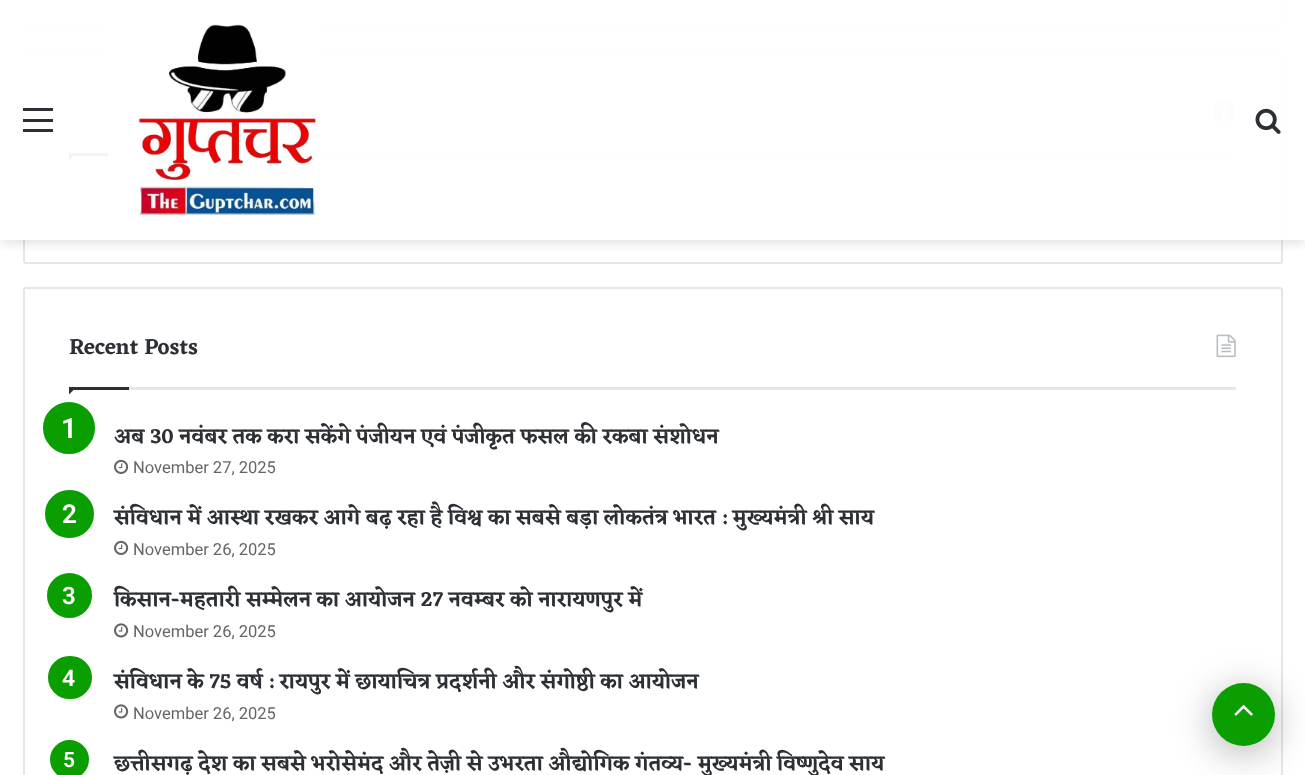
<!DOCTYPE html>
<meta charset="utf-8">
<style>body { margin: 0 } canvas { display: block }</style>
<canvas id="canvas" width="1305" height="775"></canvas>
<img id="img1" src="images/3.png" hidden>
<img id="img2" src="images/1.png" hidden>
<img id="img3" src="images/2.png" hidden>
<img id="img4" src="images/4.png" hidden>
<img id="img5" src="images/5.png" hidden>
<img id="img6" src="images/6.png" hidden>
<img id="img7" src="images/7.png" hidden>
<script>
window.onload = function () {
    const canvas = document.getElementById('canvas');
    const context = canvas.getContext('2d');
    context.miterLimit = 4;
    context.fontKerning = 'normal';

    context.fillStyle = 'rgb(255, 255, 255)';
    context.fillRect(0, 0, 1305, 775);
    context.beginPath();
    context.roundRect(24, -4, 1258, 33, 2);
    context.strokeStyle = 'rgb(230, 230, 230)';
    context.lineWidth = 2;
    context.stroke();
    context.beginPath();
    context.roundRect(24, 54, 1258, 209, 2);
    context.stroke();
    context.fillStyle = 'rgb(230, 230, 230)';
    context.fillRect(316, 153, 920, 3);
    context.drawImage(document.getElementById('img1'), 1213, 100, 23, 23);
    context.fillStyle = 'rgb(44, 47, 52)';
    context.beginPath();
    context.moveTo(69, 153);
    context.lineTo(76.5, 153);
    context.lineTo(69, 160.5);
    context.closePath();
    context.fill();
    context.fillRect(69, 153, 40, 3);
    context.save();
    context.beginPath();
    context.rect(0, 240, 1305, 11);
    context.clip();
    context.fillStyle = 'rgba(99, 99, 99, 0.2)';
    context.filter = 'blur(6px)';
    context.beginPath();
    context.rect(0, 3, 1305, 240);
    context.fill();
    context.filter = 'none';
    context.restore();
    context.fillStyle = 'rgba(255, 255, 255, 0.95)';
    context.fillRect(23, 0, 1260, 240);
    context.fillStyle = 'rgb(44, 47, 52)';
    context.fillRect(23, 119, 30, 3);
    context.fillRect(23, 108, 30, 3);
    context.fillRect(23, 129, 30, 3);
    context.drawImage(document.getElementById('img2'), 108, 24, 208, 192);
    context.drawImage(document.getElementById('img3'), 1255, 108, 26, 26);
    context.beginPath();
    context.roundRect(24, 288, 1258, 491, 2);
    context.stroke();
    context.fillStyle = 'rgb(230, 230, 230)';
    context.fillRect(129, 387, 1107, 3);
    context.drawImage(document.getElementById('img4'), 1216, 334, 20, 24);
    context.fillStyle = 'rgb(44, 47, 52)';
    context.beginPath();
    context.moveTo(69, 387);
    context.lineTo(76.5, 387);
    context.lineTo(69, 394.5);
    context.closePath();
    context.fill();
    context.fillRect(69, 387, 60, 3);
    context.fillStyle = 'rgb(10, 158, 1)';
    context.beginPath();
    context.arc(69, 428, 28, 0, 2 * Math.PI);
    context.fill();
    context.strokeStyle = 'rgb(255, 255, 255)';
    context.lineWidth = 4;
    context.stroke();
    context.drawImage(document.getElementById('img5'), 114, 459, 15, 15);
    context.beginPath();
    context.roundRect(43, 488, 53, 52, 26);
    context.fill();
    context.stroke();
    context.drawImage(document.getElementById('img5'), 114, 540, 15, 15);
    context.beginPath();
    context.arc(69.5, 595.5, 24, 0, 2 * Math.PI);
    context.fill();
    context.lineWidth = 3;
    context.stroke();
    context.drawImage(document.getElementById('img6'), 114, 623, 15, 15);
    context.beginPath();
    context.roundRect(46.5, 654.5, 47, 46, 23);
    context.fill();
    context.stroke();
    context.drawImage(document.getElementById('img6'), 114, 704, 15, 15);
    context.beginPath();
    context.arc(69.5, 759.5, 21, 0, 2 * Math.PI);
    context.fill();
    context.stroke();
    context.fillStyle = 'rgba(0, 0, 0, 0.3)';
    context.filter = 'blur(19px)';
    context.beginPath();
    context.roundRect(1212, 690, 63, 63, 31.5);
    context.fill();
    context.filter = 'none';
    context.fillStyle = 'rgb(10, 158, 1)';
    context.beginPath();
    context.arc(1243.5, 714.5, 31.5, 0, 2 * Math.PI);
    context.fill();
    context.drawImage(document.getElementById('img7'), 1234, 705, 19, 11);
    context.font = '600 22.5px Eczar';
    context.fillStyle = 'rgb(44, 47, 52)';
    context.fillText('Recent Posts', 69, 354);
    context.font = '600 28px Roboto';
    context.fillStyle = 'rgb(255, 255, 255)';
    context.fillText('1', 61, 438);
    context.font = '600 21px Eczar';
    context.fillStyle = 'rgb(44, 47, 52)';
    context.fillText('अब 30 नवंबर तक करा सकेंगे पंजीयन एवं पंजीकृत फसल की रकबा संशोधन', 114, 443);
    context.font = '16.5px Roboto';
    context.fillStyle = 'rgb(102, 102, 102)';
    context.fillText('November 27, 2025', 133, 473);
    context.font = '600 26px Roboto';
    context.fillStyle = 'rgb(255, 255, 255)';
    context.fillText('2', 62, 523);
    context.font = '600 21px Eczar';
    context.fillStyle = 'rgb(44, 47, 52)';
    context.fillText('संविधान में आस्था रखकर आगे बढ़ रहा है विश्व का सबसे बड़ा लोकतंत्र भारत : मुख्यमंत्री श्री साय', 114, 524);
    context.font = '16.5px Roboto';
    context.fillStyle = 'rgb(102, 102, 102)';
    context.fillText('November 26, 2025', 133, 555);
    context.font = '600 24px Roboto';
    context.fillStyle = 'rgb(255, 255, 255)';
    context.fillText('3', 62, 604);
    context.font = '600 21px Eczar';
    context.fillStyle = 'rgb(44, 47, 52)';
    context.fillText('किसान-महतारी सम्मेलन का आयोजन 27 नवम्बर को नारायणपुर में', 114, 606);
    context.font = '16.5px Roboto';
    context.fillStyle = 'rgb(102, 102, 102)';
    context.fillText('November 26, 2025', 133, 637);
    context.font = '600 23px Roboto';
    context.fillStyle = 'rgb(255, 255, 255)';
    context.fillText('4', 62, 686);
    context.font = '600 21px Eczar';
    context.fillStyle = 'rgb(44, 47, 52)';
    context.fillText('संविधान के 75 वर्ष : रायपुर में छायाचित्र प्रदर्शनी और संगोष्ठी का आयोजन', 114, 688);
    context.font = '16.5px Roboto';
    context.fillStyle = 'rgb(102, 102, 102)';
    context.fillText('November 26, 2025', 133, 719);
    context.font = '600 21px Roboto';
    context.fillStyle = 'rgb(255, 255, 255)';
    context.fillText('5', 63, 767);
    context.font = '600 21px Eczar';
    context.fillStyle = 'rgb(44, 47, 52)';
    context.fillText('छत्तीसगढ़ देश का सबसे भरोसेमंद और तेज़ी से उभरता औद्योगिक गंतव्य- मुख्यमंत्री विष्णुदेव साय', 114, 770);
};
</script>
